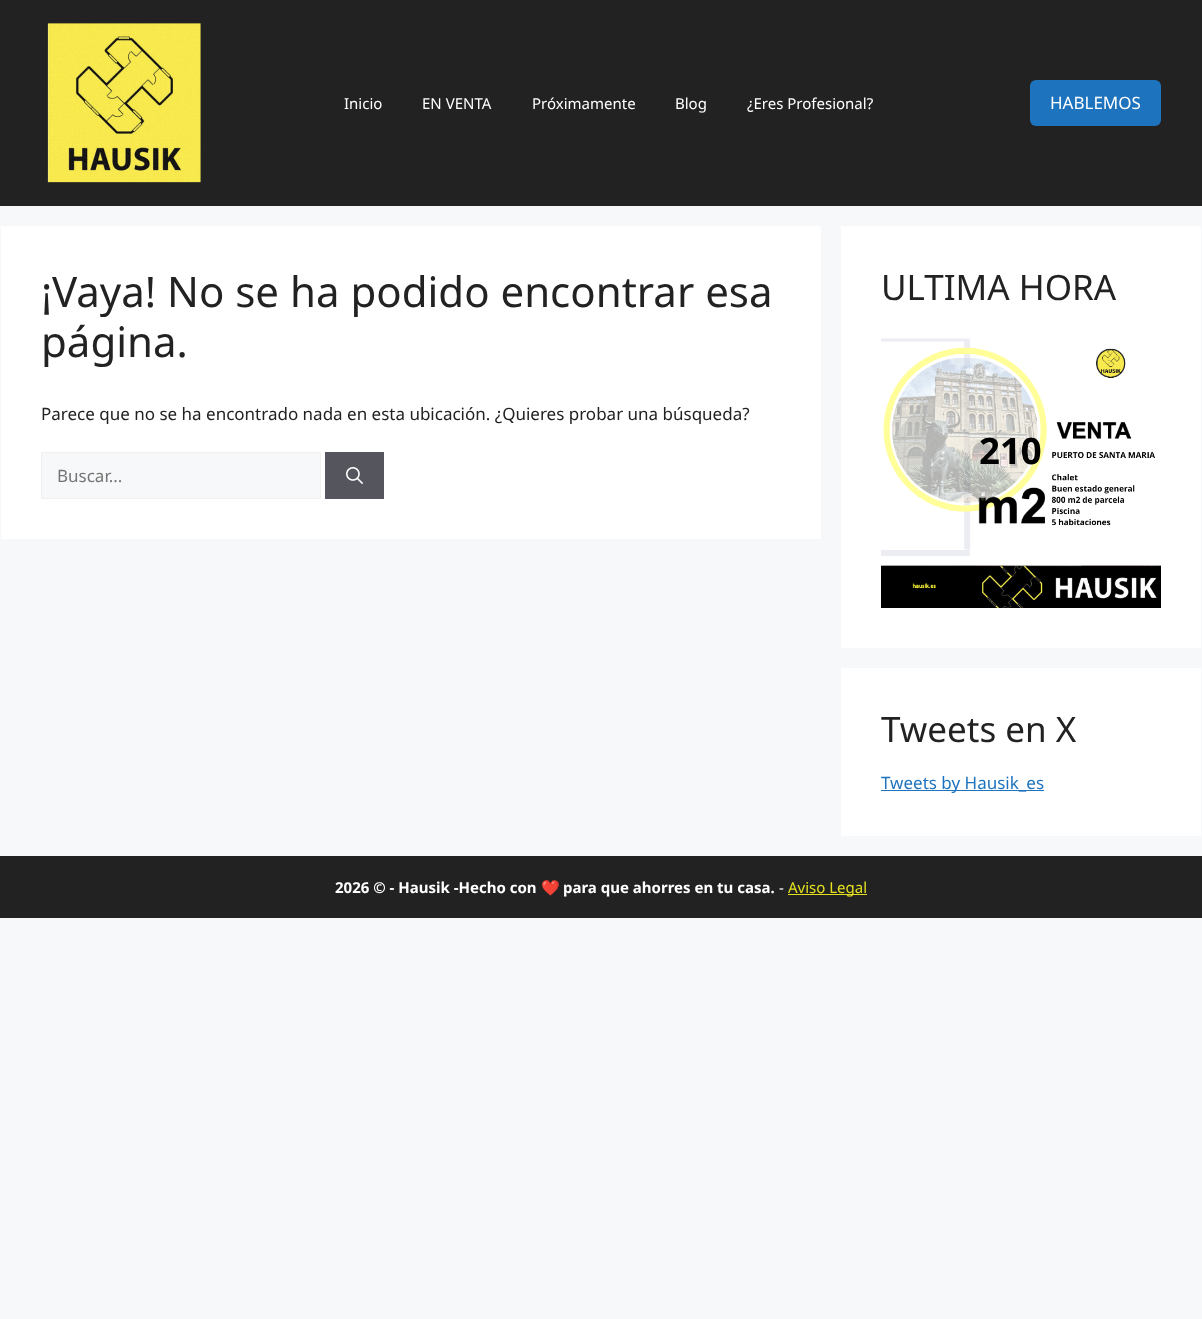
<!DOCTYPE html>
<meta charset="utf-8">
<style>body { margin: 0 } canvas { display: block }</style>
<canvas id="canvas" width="1202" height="1319"></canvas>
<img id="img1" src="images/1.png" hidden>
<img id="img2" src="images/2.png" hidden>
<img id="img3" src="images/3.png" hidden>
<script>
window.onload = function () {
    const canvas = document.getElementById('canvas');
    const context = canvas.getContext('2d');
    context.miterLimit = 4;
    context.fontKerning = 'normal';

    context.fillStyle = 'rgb(247, 248, 249)';
    context.fillRect(0, 0, 1202, 1319);
    context.fillStyle = 'rgb(34, 34, 34)';
    context.fillRect(0, 0, 1202, 206);
    context.drawImage(document.getElementById('img1'), 47, 23, 154, 160);
    context.fillStyle = 'rgb(30, 115, 190)';
    context.beginPath();
    context.roundRect(1030, 80, 131, 46, 6);
    context.fill();
    context.fillStyle = 'rgb(255, 255, 255)';
    context.fillRect(1, 226, 820, 313);
    context.fillStyle = 'rgb(247, 248, 249)';
    context.beginPath();
    context.rect(41.5, 452.5, 279, 46);
    context.fill();
    context.strokeStyle = 'rgb(240, 240, 240)';
    context.stroke();
    context.fillStyle = 'rgb(85, 85, 94)';
    context.fillRect(325, 452, 59, 47);
    context.drawImage(document.getElementById('img2'), 346, 467, 17, 17);
    context.fillStyle = 'rgb(255, 255, 255)';
    context.fillRect(841, 226, 360, 422);
    context.drawImage(document.getElementById('img3'), 881, 338, 280, 270);
    context.fillRect(841, 668, 360, 168);
    context.fillStyle = 'rgb(30, 115, 190)';
    context.fillRect(881, 790, 163, 1);
    context.fillStyle = 'rgb(34, 34, 34)';
    context.fillRect(0, 856, 1202, 62);
    context.fillStyle = 'rgb(228, 224, 32)';
    context.fillRect(788, 894, 79, 1);
    context.font = '15px Noto Sans';
    context.fillStyle = 'rgb(255, 255, 255)';
    context.fillText('Inicio', 344, 109);
    context.fillText('EN VENTA', 422, 109);
    context.fillText('Próximamente', 532, 109);
    context.fillText('Blog', 675, 109);
    context.fillText('¿Eres Profesional?', 747, 109);
    context.font = '17px Noto Sans';
    context.fillText('HABLEMOS', 1050, 109);
    context.font = '42px Noto Sans';
    context.fillStyle = 'rgb(34, 34, 34)';
    context.fillText('¡Vaya! No se ha podido encontrar esa', 41, 307);
    context.fillText('página.', 41, 357);
    context.font = '17px Noto Sans';
    context.fillText('Parece que no se ha encontrado nada en esta ubicación. ¿Quieres probar una búsqueda?', 41, 420);
    context.fillStyle = 'rgb(117, 117, 117)';
    context.fillText('Buscar...', 57, 482);
    context.font = '35px Noto Sans';
    context.fillStyle = 'rgb(34, 34, 34)';
    context.fillText('ULTIMA HORA', 881, 300);
    context.fillText('Tweets en X', 881, 742);
    context.font = '17px Noto Sans';
    context.fillStyle = 'rgb(30, 115, 190)';
    context.fillText('Tweets by Hausik_es', 881, 789);
    context.font = 'bold 15px Noto Sans';
    context.fillStyle = 'rgb(255, 255, 255)';
    context.fillText('2026 © - Hausik -Hecho con', 335, 893);
    context.font = 'bold 15px Noto Color Emoji';
    context.fillText('❤️', 541, 893);
    context.font = 'bold 15px Noto Sans';
    context.fillText('para que ahorres en tu casa.', 563, 893);
    context.font = '15px Noto Sans';
    context.fillText('-', 779, 893);
    context.fillStyle = 'rgb(228, 225, 32)';
    context.fillText('Aviso Legal', 788, 893);
};
</script>
